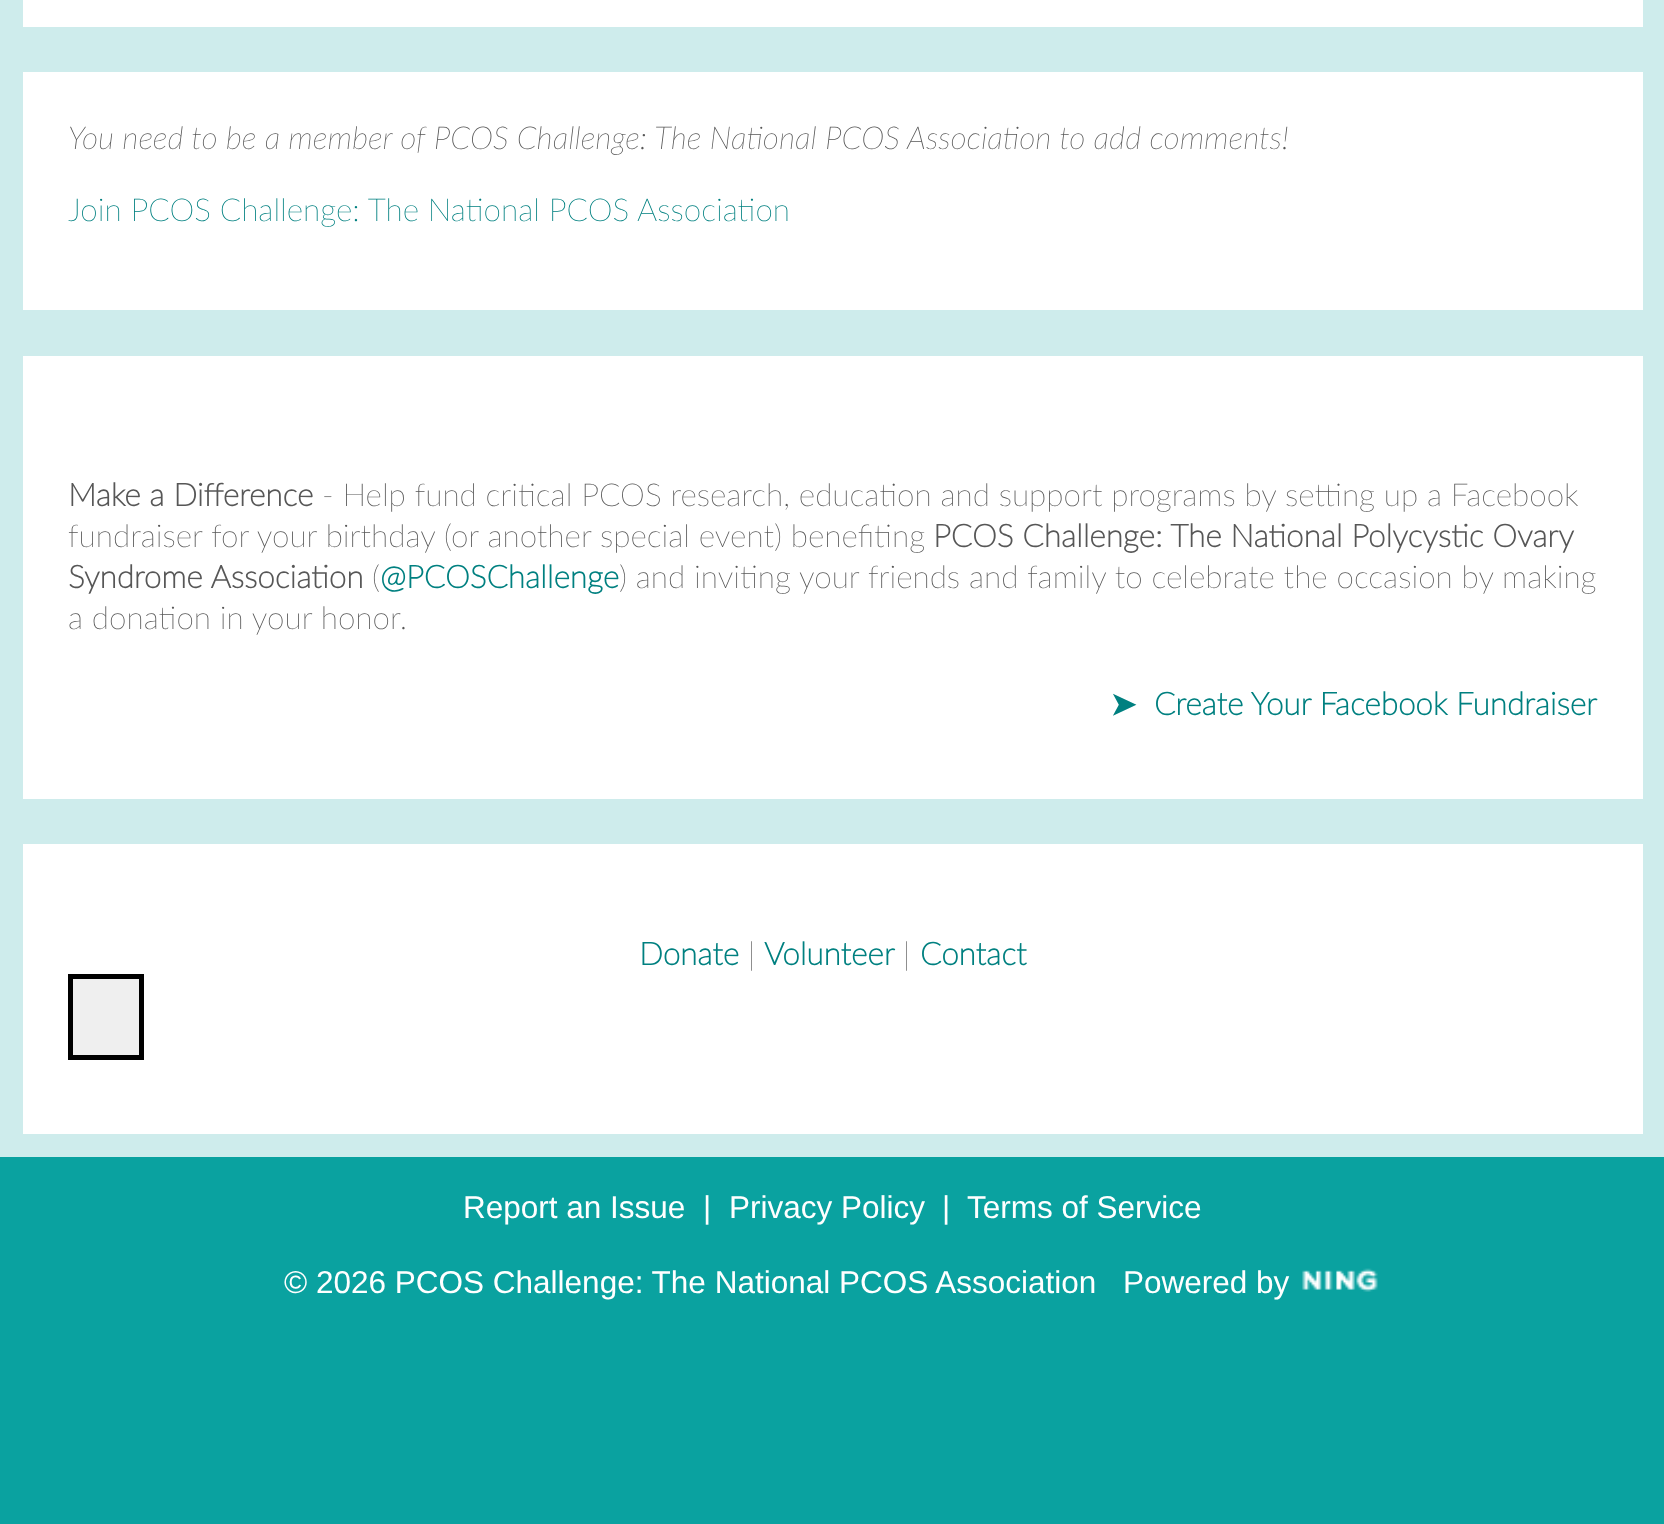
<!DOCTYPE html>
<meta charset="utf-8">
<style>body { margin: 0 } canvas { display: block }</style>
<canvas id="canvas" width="1664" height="1524"></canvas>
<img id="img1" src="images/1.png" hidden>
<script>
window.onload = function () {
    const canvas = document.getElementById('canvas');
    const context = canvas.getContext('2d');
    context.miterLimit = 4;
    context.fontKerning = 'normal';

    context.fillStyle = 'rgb(10, 162, 160)';
    context.fillRect(0, 0, 1664, 1524);
    context.fillStyle = 'rgb(206, 236, 236)';
    context.fillRect(0, 0, 1664, 1157);
    context.fillStyle = 'rgb(255, 255, 255)';
    context.fillRect(23, 0, 1620, 27);
    context.fillRect(23, 72, 1620, 238);
    context.fillRect(23, 356, 1620, 443);
    context.fillRect(23, 844, 1620, 290);
    context.fillStyle = 'rgb(239, 239, 239)';
    context.beginPath();
    context.rect(70.5, 976.5, 71, 81);
    context.fill();
    context.strokeStyle = 'rgb(0, 0, 0)';
    context.lineWidth = 5;
    context.stroke();
    context.drawImage(document.getElementById('img1'), 1302, 1268, 76, 24);
    context.font = 'italic 300 31.5px Lato';
    context.fillStyle = 'rgb(87, 87, 87)';
    context.fillText('You need to be a member of PCOS Challenge: The National PCOS Association to add comments!', 68, 149);
    context.font = '300 31.5px Lato';
    context.fillStyle = 'rgb(0, 128, 128)';
    context.fillText('Join PCOS Challenge: The National PCOS Association', 68, 221);
    context.font = 'bold 31.5px Lato';
    context.fillStyle = 'rgb(87, 87, 87)';
    context.fillText('Make a Difference', 68, 506);
    context.font = '300 31.5px Lato';
    context.fillText('- Help fund critical PCOS research, education and support programs by setting up a Facebook', 322, 506);
    context.fillText('fundraiser for your birthday (or another special event) benefiting', 68, 547);
    context.font = 'bold 31.5px Lato';
    context.fillText('PCOS Challenge: The National Polycystic Ovary', 933, 547);
    context.fillText('Syndrome Association', 68, 588);
    context.font = '300 31.5px Lato';
    context.fillText('(', 372, 588);
    context.font = 'bold 31.5px Lato';
    context.fillStyle = 'rgb(0, 128, 128)';
    context.fillText('@PCOSChallenge', 380, 588);
    context.font = '300 31.5px Lato';
    context.fillStyle = 'rgb(87, 87, 87)';
    context.fillText(') and inviting your friends and family to celebrate the occasion by making', 619, 588);
    context.fillText('a donation in your honor.', 68, 629);
    context.font = 'bold 31.5px DejaVu Sans';
    context.fillStyle = 'rgb(0, 128, 128)';
    context.fillText('➤', 1110, 715);
    context.font = 'bold 31.5px Lato';
    context.fillText('Create Your Facebook Fundraiser', 1154, 715);
    context.fillText('Donate', 639, 965);
    context.font = '300 31.5px Lato';
    context.fillStyle = 'rgb(87, 87, 87)';
    context.fillText('|', 748, 965);
    context.font = 'bold 31.5px Lato';
    context.fillStyle = 'rgb(0, 128, 128)';
    context.fillText('Volunteer', 764, 965);
    context.font = '300 31.5px Lato';
    context.fillStyle = 'rgb(87, 87, 87)';
    context.fillText('|', 903, 965);
    context.font = 'bold 31.5px Lato';
    context.fillStyle = 'rgb(0, 128, 128)';
    context.fillText('Contact', 920, 965);
    context.font = '31.5px Liberation Sans';
    context.fillStyle = 'rgb(255, 255, 255)';
    context.fillText('Report an Issue', 463, 1218);
    context.fillText('|', 703, 1218);
    context.fillText('Privacy Policy', 729, 1218);
    context.fillText('|', 942, 1218);
    context.fillText('Terms of Service', 967, 1218);
    context.fillText('© 2026 PCOS Challenge: The National PCOS Association', 284, 1293);
    context.fillText('Powered by', 1123, 1293);
};
</script>
